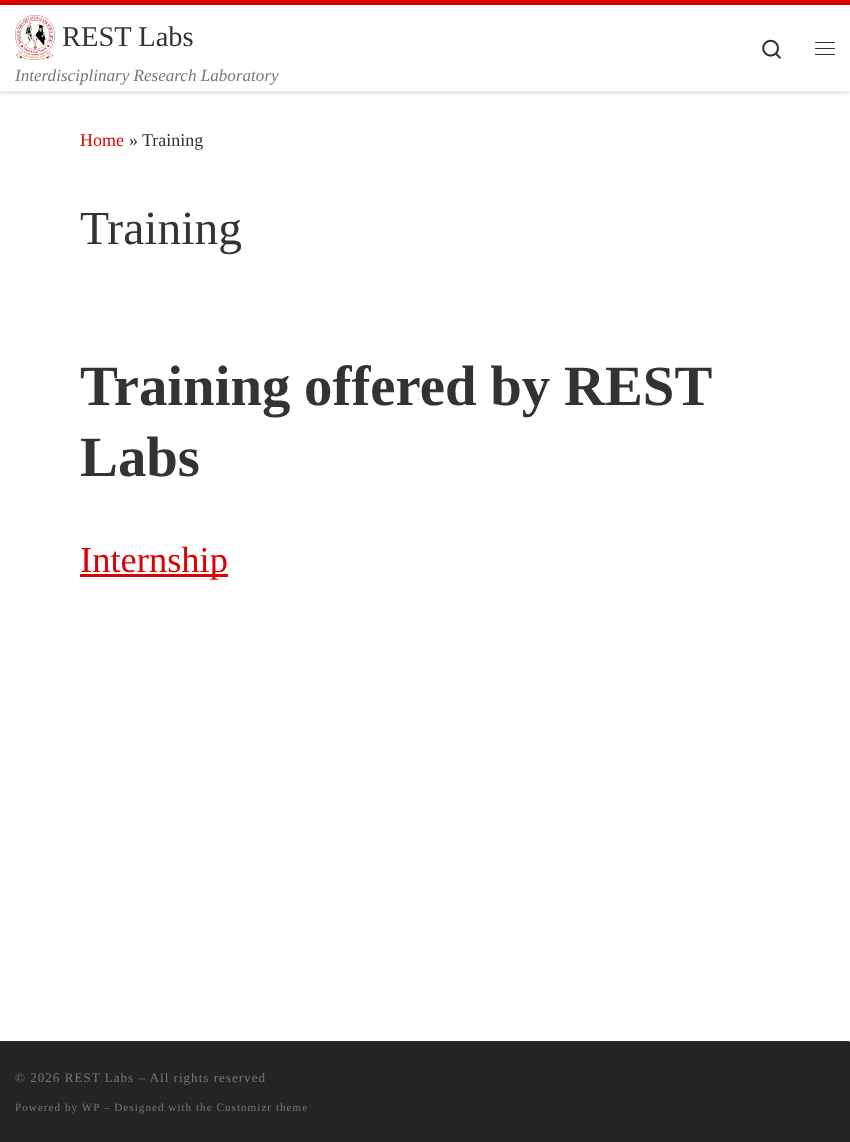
<!DOCTYPE html>
<meta charset="utf-8">
<style>body { margin: 0 } canvas { display: block }</style>
<canvas id="canvas" width="850" height="1142"></canvas>
<img id="img1" src="images/1.png" hidden>
<img id="img2" src="images/2.png" hidden>
<script>
window.onload = function () {
    const canvas = document.getElementById('canvas');
    const context = canvas.getContext('2d');
    context.miterLimit = 4;
    context.fontKerning = 'normal';

    context.fillStyle = 'rgb(255, 255, 255)';
    context.fillRect(0, 0, 850, 1142);
    context.fillStyle = 'rgba(102, 102, 102, 0.08)';
    context.filter = 'blur(1px)';
    context.beginPath();
    context.rect(0, 2, 850, 90);
    context.fill();
    context.filter = 'none';
    context.fillStyle = 'rgb(221, 2, 2)';
    context.fillRect(0, 0, 850, 5);
    context.fillStyle = 'rgba(0, 0, 0, 0.2)';
    context.filter = 'blur(2.5px)';
    context.beginPath();
    context.rect(0, 5, 850, 87);
    context.fill();
    context.filter = 'none';
    context.fillStyle = 'rgb(255, 255, 255)';
    context.fillRect(0, 5, 850, 86);
    context.drawImage(document.getElementById('img1'), 15, 15, 40, 45);
    context.drawImage(document.getElementById('img2'), 762, 39, 20, 20);
    context.fillStyle = 'rgb(49, 49, 49)';
    context.beginPath();
    context.roundRect(815, 42, 20, 1, 0.5);
    context.fill();
    context.beginPath();
    context.roundRect(815, 48, 20, 1, 0.5);
    context.fill();
    context.beginPath();
    context.roundRect(815, 54, 20, 1, 0.5);
    context.fill();
    context.fillStyle = 'rgb(240, 240, 240)';
    context.fillRect(0, 91, 850, 1);
    context.fillStyle = 'rgb(221, 2, 2)';
    context.fillRect(80, 574, 148, 3);
    context.fillStyle = 'rgb(49, 49, 49)';
    context.fillRect(0, 1041, 850, 1);
    context.fillStyle = 'rgb(36, 36, 36)';
    context.fillRect(0, 1042, 850, 100);
    context.fillStyle = 'rgb(255, 255, 255)';
    context.beginPath();
    context.roundRect(849, 997, 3, 45, 2);
    context.fill();
    context.font = '28.5px Liberation Serif';
    context.fillStyle = 'rgb(51, 51, 51)';
    context.fillText('REST Labs', 62, 46);
    context.font = 'italic 17.1px Liberation Serif';
    context.fillStyle = 'rgb(119, 119, 119)';
    context.fillText('Interdisciplinary Research Laboratory', 15, 81);
    context.font = '18px Liberation Serif';
    context.fillStyle = 'rgb(221, 2, 2)';
    context.fillText('Home', 80, 146);
    context.fillStyle = 'rgb(51, 51, 51)';
    context.fillText('»', 129, 146);
    context.fillText('Training', 142, 146);
    context.font = '47.5px Liberation Serif';
    context.fillText('Training', 80, 244);
    context.wordSpacing = '-0.5px';
    context.font = 'bold 56.8px Liberation Serif';
    context.fillText('Training offered by REST', 80, 405);
    context.wordSpacing = '0px';
    context.fillText('Labs', 80, 476);
    context.font = '36.5px Liberation Serif';
    context.fillStyle = 'rgb(221, 2, 2)';
    context.fillText('Internship', 80, 572);
    context.letterSpacing = '1px';
    context.font = '13.1px Liberation Serif';
    context.fillStyle = 'rgb(119, 119, 119)';
    context.fillText('© 2026 REST Labs – All rights reserved', 15, 1082);
    context.font = '11.2px Liberation Serif';
    context.fillText('Powered by WP – Designed with the Customizr theme', 15, 1111);
};
</script>
